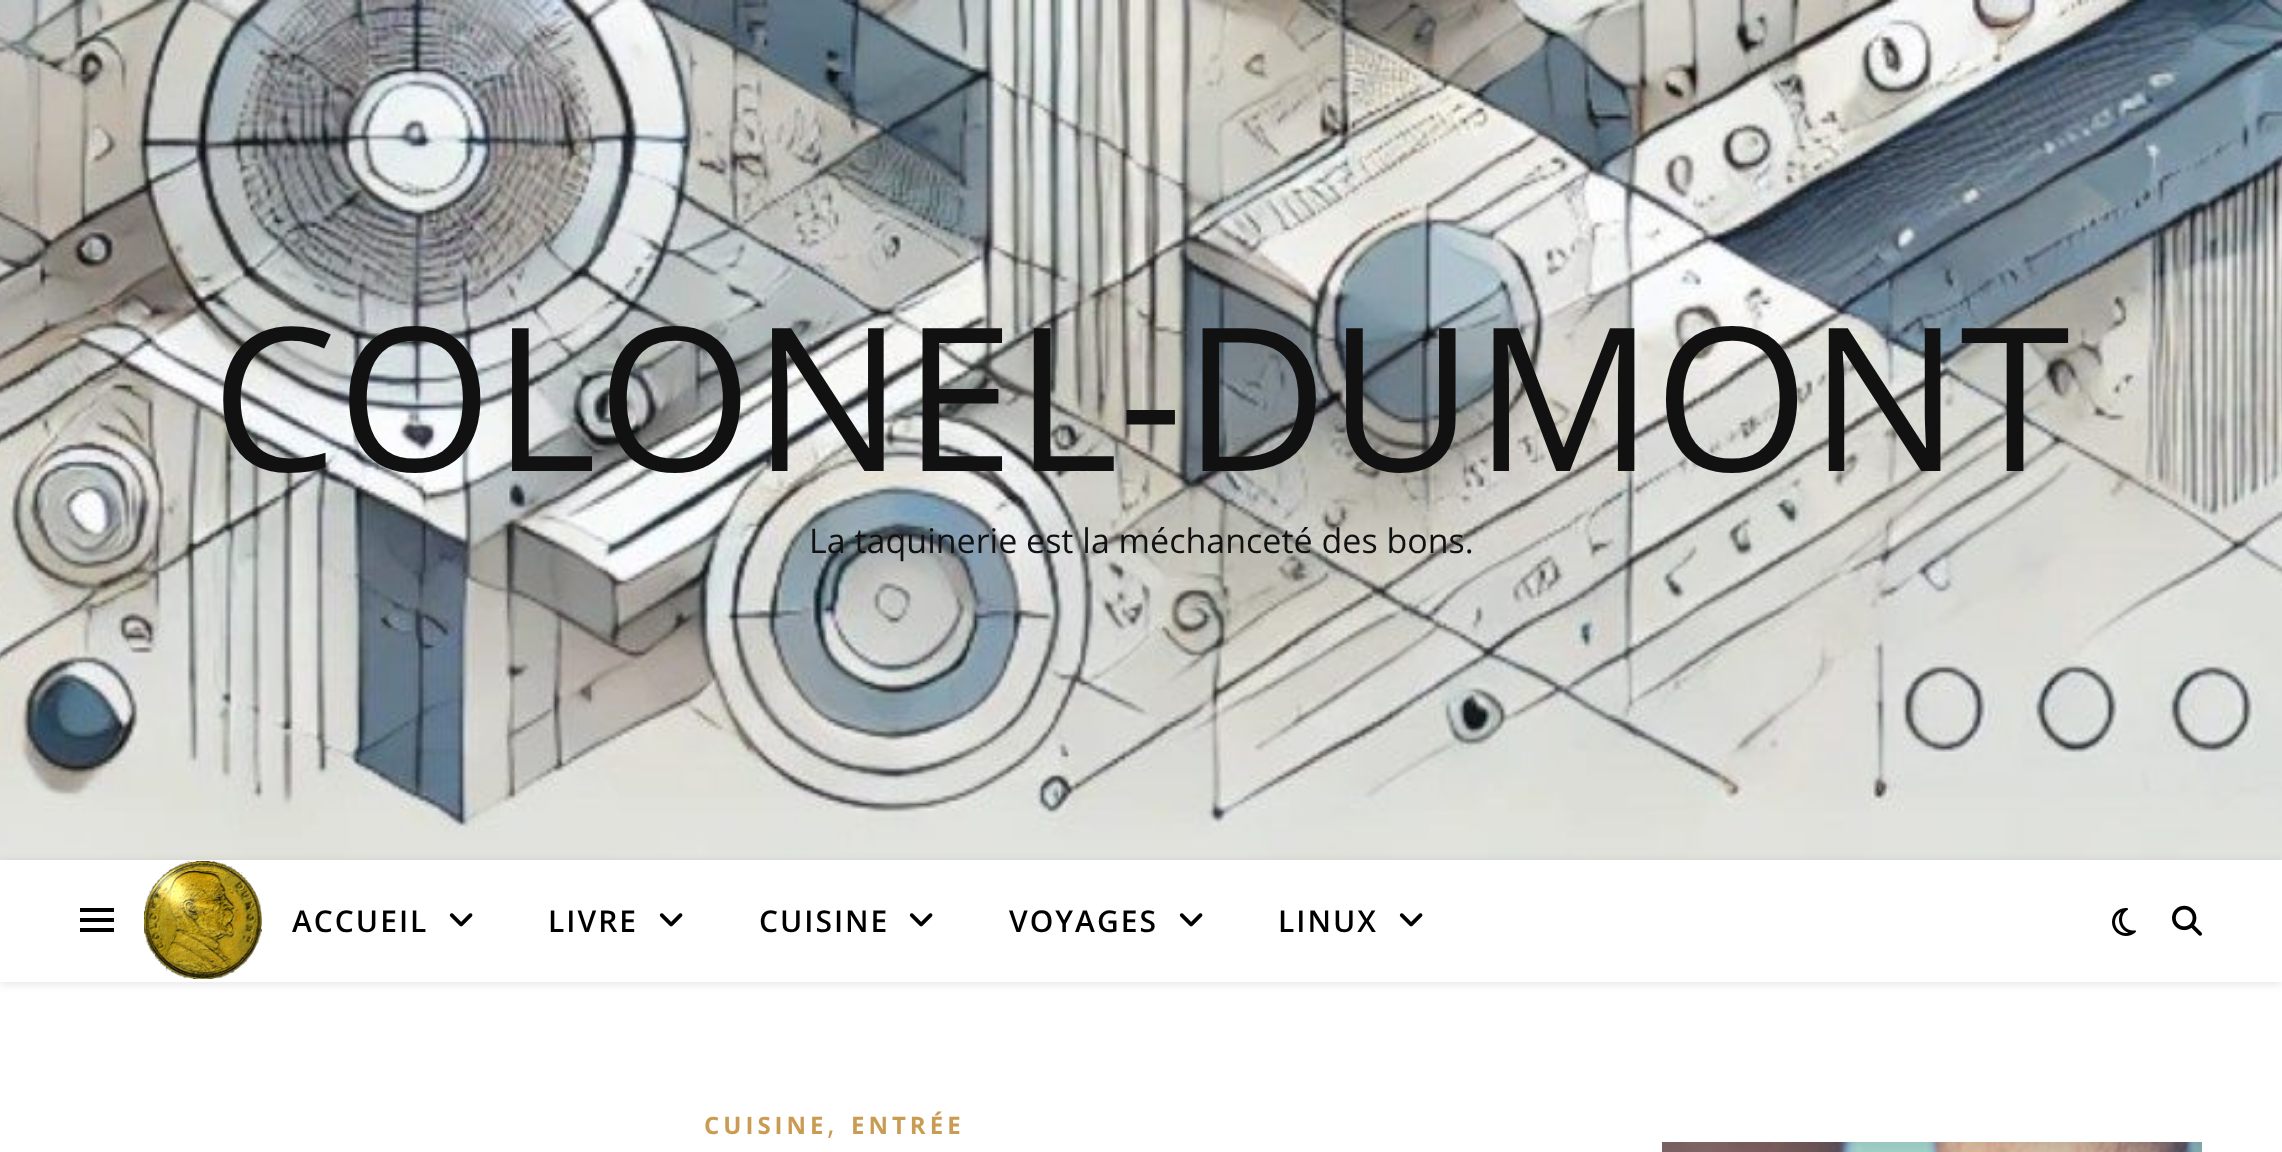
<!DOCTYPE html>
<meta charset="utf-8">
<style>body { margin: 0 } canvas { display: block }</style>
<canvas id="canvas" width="2282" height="1152"></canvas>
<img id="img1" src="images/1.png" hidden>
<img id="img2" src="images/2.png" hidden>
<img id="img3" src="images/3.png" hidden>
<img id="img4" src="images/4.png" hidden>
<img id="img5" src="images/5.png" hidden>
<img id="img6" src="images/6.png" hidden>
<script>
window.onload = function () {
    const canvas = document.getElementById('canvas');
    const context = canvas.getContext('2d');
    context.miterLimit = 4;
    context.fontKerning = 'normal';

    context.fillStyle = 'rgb(255, 255, 255)';
    context.fillRect(0, 0, 2282, 1152);
    context.drawImage(document.getElementById('img1'), 0, 0, 2282, 860);
    context.fillStyle = 'rgba(0, 0, 0, 0.1)';
    context.filter = 'blur(5px)';
    context.beginPath();
    context.rect(0, 862, 2282, 122);
    context.fill();
    context.filter = 'none';
    context.fillStyle = 'rgb(255, 255, 255)';
    context.fillRect(0, 860, 2282, 122);
    context.fillStyle = 'rgb(0, 0, 0)';
    context.fillRect(80, 908, 34, 4);
    context.fillRect(80, 918, 34, 4);
    context.fillRect(80, 928, 34, 4);
    context.drawImage(document.getElementById('img2'), 144, 861, 118, 118);
    context.drawImage(document.getElementById('img3'), 449, 913, 24, 14);
    context.drawImage(document.getElementById('img3'), 659, 913, 24, 14);
    context.drawImage(document.getElementById('img3'), 909, 913, 24, 14);
    context.drawImage(document.getElementById('img3'), 1179, 913, 24, 14);
    context.drawImage(document.getElementById('img3'), 1399, 913, 24, 14);
    context.drawImage(document.getElementById('img4'), 2112, 908, 24, 28);
    context.drawImage(document.getElementById('img5'), 2172, 905, 30, 31);
    context.drawImage(document.getElementById('img6'), 1662, 1142, 540, 10);
    context.font = '200px Open Sans';
    context.fillStyle = 'rgb(17, 17, 17)';
    context.fillText('COLONEL-DUMONT', 211, 471);
    context.font = '34px Open Sans';
    context.fillText('La taquinerie est la méchanceté des bons.', 809, 553);
    context.letterSpacing = '2px';
    context.font = '600 30px Open Sans';
    context.fillStyle = 'rgb(0, 0, 0)';
    context.fillText('ACCUEIL', 292, 932);
    context.fillText('LIVRE', 548, 932);
    context.fillText('CUISINE', 759, 932);
    context.fillText('VOYAGES', 1009, 932);
    context.fillText('LINUX', 1278, 932);
    context.letterSpacing = '4px';
    context.font = 'bold 24px Open Sans';
    context.fillStyle = 'rgb(202, 155, 82)';
    context.fillText('CUISINE', 704, 1134);
    context.letterSpacing = '0px';
    context.font = '30px Open Sans';
    context.fillText(',', 827, 1134);
    context.letterSpacing = '4px';
    context.font = 'bold 24px Open Sans';
    context.fillText('ENTRÉE', 851, 1134);
};
</script>
